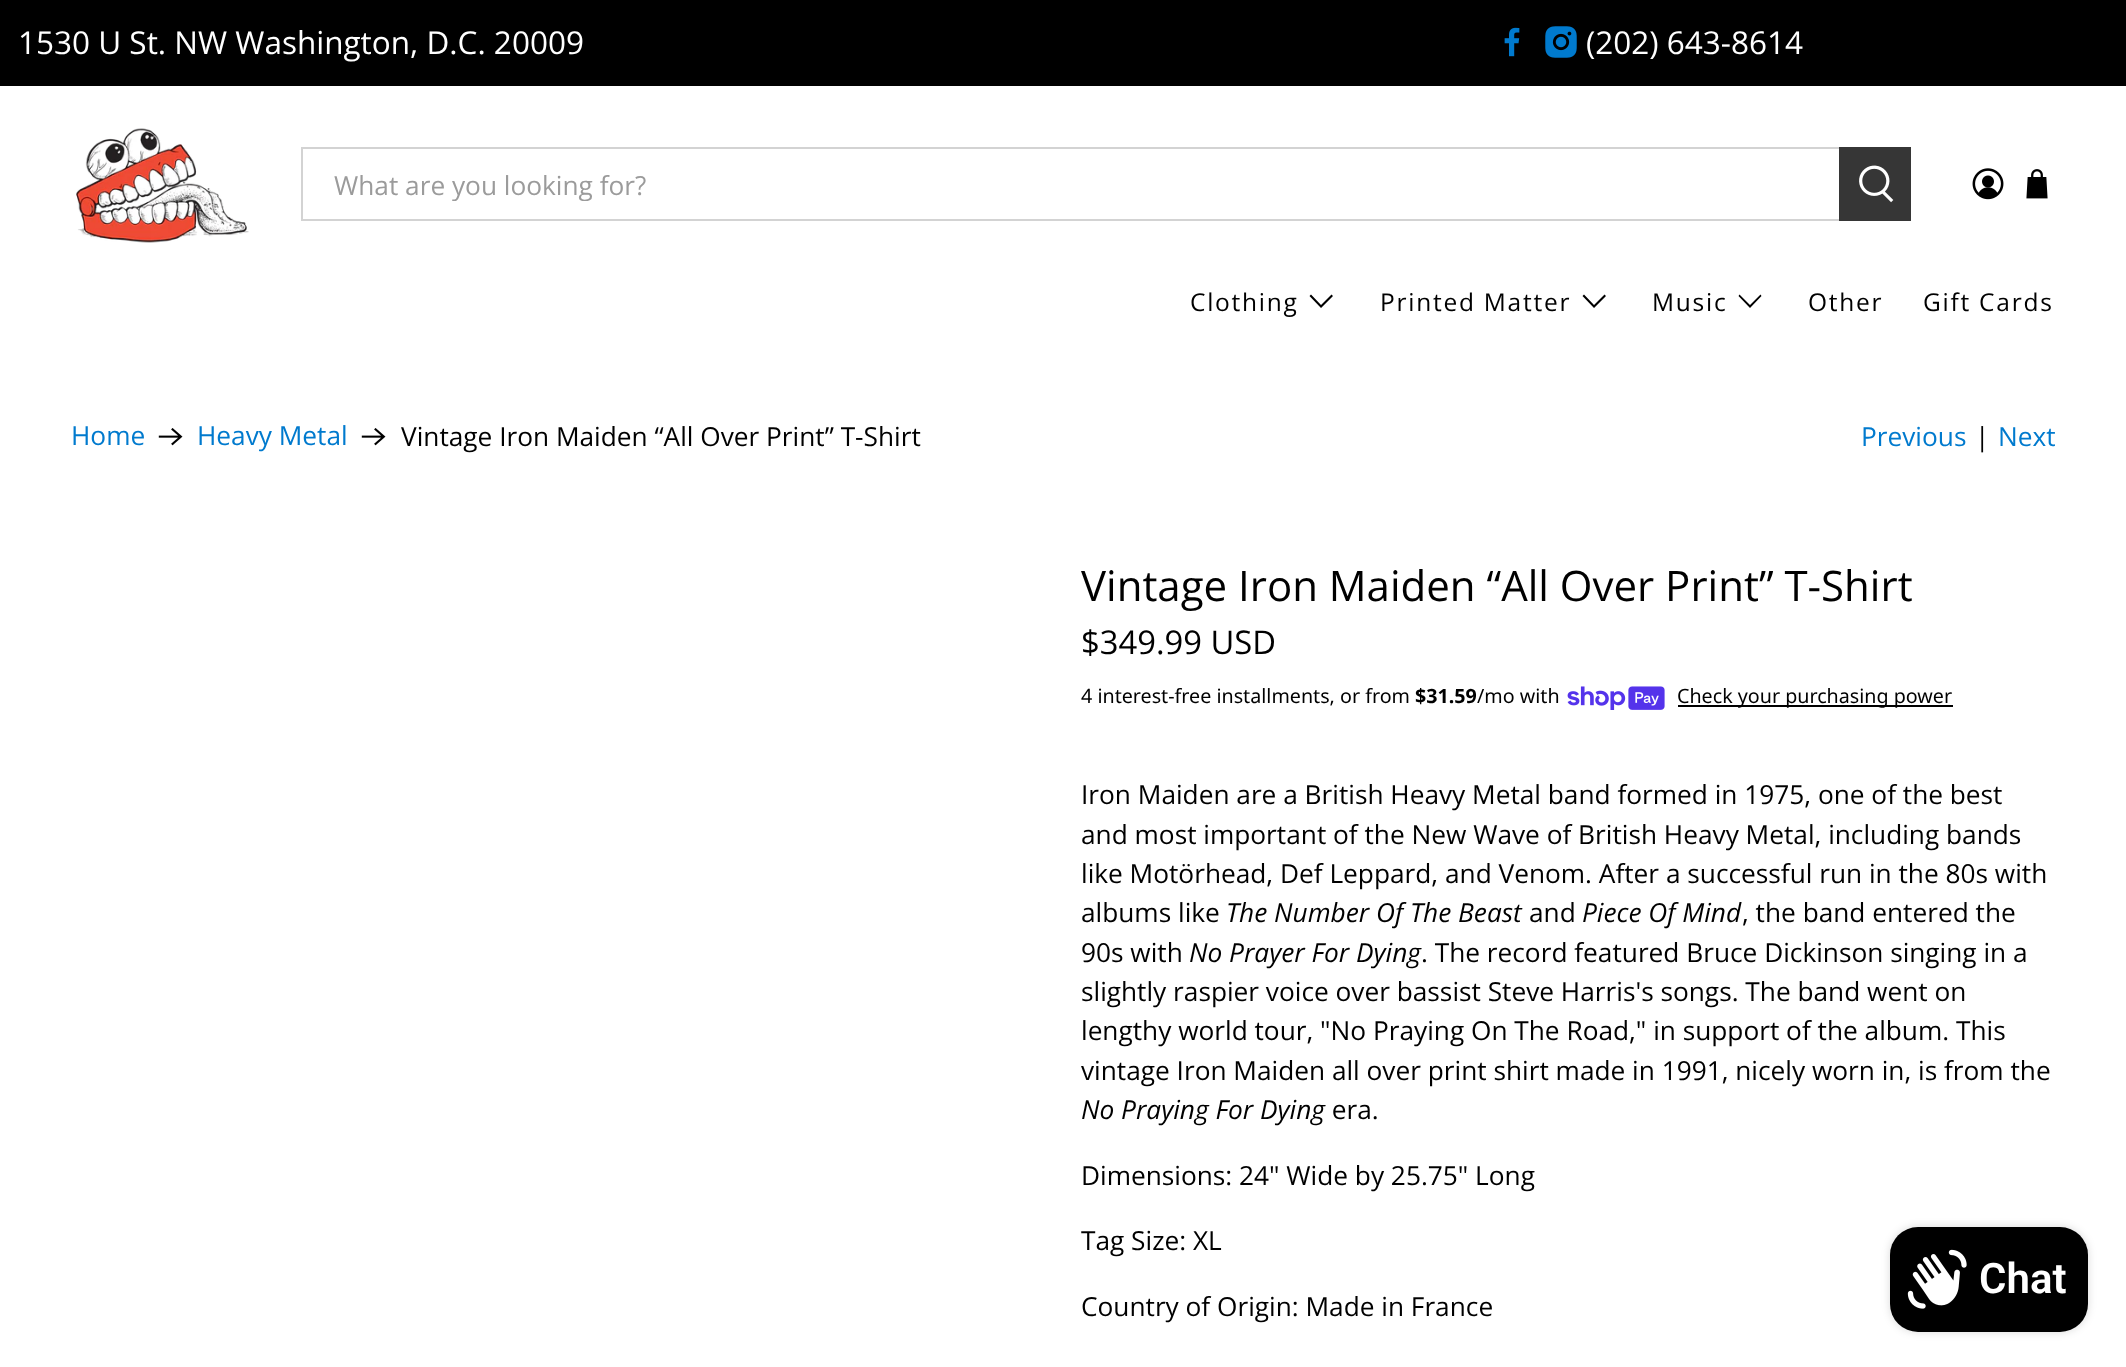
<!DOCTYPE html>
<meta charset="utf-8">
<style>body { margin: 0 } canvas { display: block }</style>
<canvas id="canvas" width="2126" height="1367"></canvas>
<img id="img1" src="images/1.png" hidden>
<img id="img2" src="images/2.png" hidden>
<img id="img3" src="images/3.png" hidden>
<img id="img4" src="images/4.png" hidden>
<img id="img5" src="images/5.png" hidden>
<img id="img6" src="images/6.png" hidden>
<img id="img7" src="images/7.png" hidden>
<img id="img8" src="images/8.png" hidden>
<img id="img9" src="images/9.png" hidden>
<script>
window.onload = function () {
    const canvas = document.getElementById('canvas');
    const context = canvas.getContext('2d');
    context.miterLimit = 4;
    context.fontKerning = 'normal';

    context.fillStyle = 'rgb(255, 255, 255)';
    context.fillRect(0, 0, 2126, 1367);
    context.fillStyle = 'rgb(0, 0, 0)';
    context.fillRect(0, 0, 2126, 86);
    context.drawImage(document.getElementById('img1'), 1504, 27, 16, 30);
    context.drawImage(document.getElementById('img2'), 1545, 26, 32, 32);
    context.drawImage(document.getElementById('img3'), 76, 128, 173, 115);
    context.strokeStyle = 'rgb(211, 211, 211)';
    context.lineWidth = 2;
    context.strokeRect(302, 148, 1538, 72);
    context.fillStyle = 'rgb(54, 54, 54)';
    context.fillRect(1839, 147, 72, 74);
    context.drawImage(document.getElementById('img4'), 1859, 165, 35, 38);
    context.drawImage(document.getElementById('img5'), 1972, 168, 32, 32);
    context.drawImage(document.getElementById('img6'), 2026, 169, 22, 30);
    context.fillStyle = 'rgb(0, 0, 0)';
    context.beginPath();
    context.moveTo(1321, 308);
    context.lineTo(1309.5, 296);
    context.lineTo(1311, 294.5);
    context.lineTo(1321, 305);
    context.lineTo(1331.5, 294.5);
    context.lineTo(1333, 296);
    context.closePath();
    context.fill();
    context.beginPath();
    context.moveTo(1594, 308);
    context.lineTo(1582.5, 296);
    context.lineTo(1584, 294.5);
    context.lineTo(1594, 305);
    context.lineTo(1604.5, 294.5);
    context.lineTo(1606, 296);
    context.closePath();
    context.fill();
    context.beginPath();
    context.moveTo(1750, 308);
    context.lineTo(1738.5, 296);
    context.lineTo(1739.5, 294.5);
    context.lineTo(1750, 305);
    context.lineTo(1760.5, 294.5);
    context.lineTo(1761.5, 296);
    context.closePath();
    context.fill();
    context.drawImage(document.getElementById('img7'), 158, 428, 25, 18);
    context.drawImage(document.getElementById('img7'), 361, 428, 25, 18);
    context.drawImage(document.getElementById('img8'), 1567, 686, 98, 24);
    context.fillRect(1678, 705, 275, 2);
    context.fillStyle = 'rgba(0, 0, 0, 0.15)';
    context.filter = 'blur(4.5px)';
    context.beginPath();
    context.roundRect(1890, 1227, 198, 105, 28);
    context.fill();
    context.filter = 'none';
    context.fillStyle = 'rgb(0, 0, 0)';
    context.beginPath();
    context.roundRect(1890, 1227, 198, 105, 28);
    context.fill();
    context.drawImage(document.getElementById('img9'), 1907, 1249, 60, 60);
    context.font = '31.5px Open Sans';
    context.fillStyle = 'rgb(255, 255, 255)';
    context.fillText('1530 U St. NW Washington, D.C. 20009', 18, 54);
    context.fillText('(202) 643-8614', 1586, 54);
    context.save();
    context.beginPath();
    context.rect(334, 166, 1474, 35);
    context.clip();
    context.font = '26.25px Open Sans';
    context.fillStyle = 'rgb(155, 155, 155)';
    context.fillText('What are you looking for?', 334, 195);
    context.restore();
    context.letterSpacing = '1.75px';
    context.font = '24.5px Open Sans';
    context.fillStyle = 'rgb(0, 0, 0)';
    context.fillText('Clothing', 1190, 311);
    context.fillText('Printed Matter', 1380, 311);
    context.fillText('Music', 1652, 311);
    context.fillText('Other', 1808, 311);
    context.fillText('Gift Cards', 1923, 311);
    context.letterSpacing = '0px';
    context.font = '26.25px Open Sans';
    context.fillStyle = 'rgb(0, 122, 206)';
    context.fillText('Home', 71, 445);
    context.fillText('Heavy Metal', 197, 445);
    context.fillStyle = 'rgb(0, 0, 0)';
    context.fillText('Vintage Iron Maiden “All Over Print” T-Shirt', 401, 446);
    context.fillStyle = 'rgb(0, 122, 206)';
    context.fillText('Previous', 1861, 446);
    context.fillStyle = 'rgb(0, 0, 0)';
    context.fillText('|', 1975, 446);
    context.fillStyle = 'rgb(0, 122, 206)';
    context.fillText('Next', 1998, 446);
    context.font = '42px Open Sans';
    context.fillStyle = 'rgb(0, 0, 0)';
    context.fillText('Vintage Iron Maiden “All Over Print” T-Shirt', 1081, 601);
    context.font = '32.75px Open Sans';
    context.fillText('$349.99 USD', 1081, 654);
    context.font = '19.7px Noto Sans';
    context.fillText('4 interest-free installments, or from', 1081, 703);
    context.font = 'bold 19.7px Noto Sans';
    context.fillText('$31.59', 1415, 703);
    context.font = '19.7px Noto Sans';
    context.fillText('/mo with', 1477, 703);
    context.fillText('Check your purchasing power', 1677, 703);
    context.font = '26.25px Open Sans';
    context.fillText('Iron Maiden are a British Heavy Metal band formed in 1975, one of the best', 1081, 804);
    context.fillText('and most important of the New Wave of British Heavy Metal, including bands', 1081, 844);
    context.fillText('like Motörhead, Def Leppard, and Venom. After a successful run in the 80s with', 1081, 883);
    context.fillText('albums like', 1081, 922);
    context.font = 'italic 26.25px Open Sans';
    context.fillText('The Number Of The Beast', 1226, 922);
    context.font = '26.25px Open Sans';
    context.fillText('and', 1529, 922);
    context.font = 'italic 26.25px Open Sans';
    context.fillText('Piece Of Mind', 1582, 922);
    context.font = '26.25px Open Sans';
    context.fillText(', the band entered the', 1742, 922);
    context.fillText('90s with', 1081, 962);
    context.font = 'italic 26.25px Open Sans';
    context.fillText('No Prayer For Dying', 1189, 962);
    context.font = '26.25px Open Sans';
    context.fillText('. The record featured Bruce Dickinson singing in a', 1421, 962);
    context.fillText('slightly raspier voice over bassist Steve Harris\'s songs. The band went on', 1081, 1001);
    context.fillText('lengthy world tour, "No Praying On The Road," in support of the album. This', 1081, 1040);
    context.fillText('vintage Iron Maiden all over print shirt made in 1991, nicely worn in, is from the', 1081, 1080);
    context.font = 'italic 26.25px Open Sans';
    context.fillText('No Praying For Dying', 1081, 1119);
    context.font = '26.25px Open Sans';
    context.fillText(' era.', 1325, 1119);
    context.fillText('Dimensions: 24" Wide by 25.75" Long', 1081, 1185);
    context.fillText('Tag Size: XL', 1081, 1250);
    context.fillText('Country of Origin: Made in France', 1081, 1316);
    context.font = '600 42px Roboto';
    context.fillStyle = 'rgb(255, 255, 255)';
    context.fillText('Chat', 1979, 1293);
};
</script>
